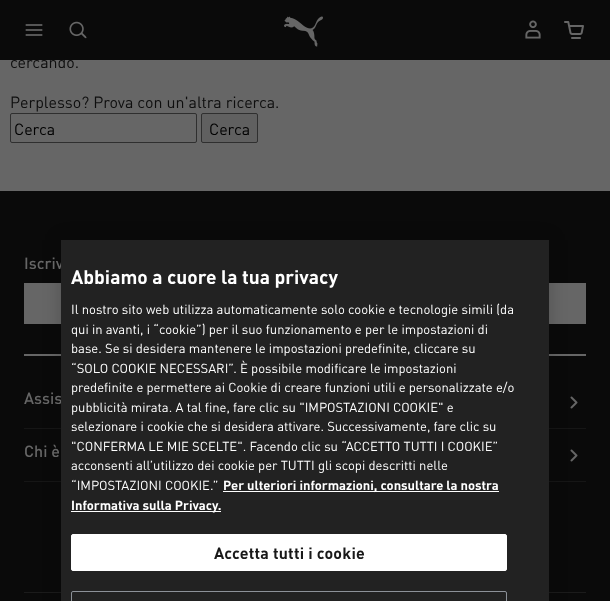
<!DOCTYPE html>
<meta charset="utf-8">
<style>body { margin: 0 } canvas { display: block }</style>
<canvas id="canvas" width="610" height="601"></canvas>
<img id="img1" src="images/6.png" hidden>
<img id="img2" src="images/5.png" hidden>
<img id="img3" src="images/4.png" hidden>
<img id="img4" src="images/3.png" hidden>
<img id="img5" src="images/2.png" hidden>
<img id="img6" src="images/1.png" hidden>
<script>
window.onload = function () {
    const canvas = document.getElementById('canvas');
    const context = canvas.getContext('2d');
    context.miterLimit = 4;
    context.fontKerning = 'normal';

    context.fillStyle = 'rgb(102, 102, 102)';
    context.fillRect(0, 0, 610, 601);
    context.beginPath();
    context.roundRect(10.5, 113.5, 186, 29, 1.5);
    context.strokeStyle = 'rgb(47, 47, 47)';
    context.stroke();
    context.fillStyle = 'rgb(96, 96, 96)';
    context.beginPath();
    context.roundRect(201.5, 113.5, 56, 29, 1.5);
    context.fill();
    context.stroke();
    context.fillStyle = 'rgb(10, 10, 10)';
    context.fillRect(0, 191, 610, 410);
    context.fillStyle = 'rgb(102, 102, 102)';
    context.fillRect(24, 283, 562, 41);
    context.fillRect(24, 354, 562, 2);
    context.fillStyle = 'rgb(22, 22, 22)';
    context.fillRect(24, 428, 562, 1);
    context.drawImage(document.getElementById('img1'), 570, 396, 8, 13);
    context.fillRect(24, 481, 562, 1);
    context.drawImage(document.getElementById('img1'), 570, 449, 8, 13);
    context.fillStyle = 'rgb(27, 27, 27)';
    context.fillRect(24, 592, 562, 1);
    context.fillStyle = 'rgba(0, 0, 0, 0.2)';
    context.filter = 'blur(9px)';
    context.beginPath();
    context.rect(61, 240, 488, 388);
    context.fill();
    context.filter = 'none';
    context.font = '16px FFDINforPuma';
    context.fillStyle = 'rgb(14, 14, 14)';
    context.fillText('cercando.', 10, 68);
    context.fillStyle = 'rgb(10, 10, 10)';
    context.fillRect(0, 0, 610, 60);
    context.drawImage(document.getElementById('img2'), 564, 21, 20, 18);
    context.drawImage(document.getElementById('img3'), 525, 20, 16, 19);
    context.drawImage(document.getElementById('img4'), 284, 16, 39, 31);
    context.drawImage(document.getElementById('img5'), 69, 21, 18, 18);
    context.drawImage(document.getElementById('img6'), 25, 24, 18, 12);
    context.fillStyle = 'rgb(14, 14, 14)';
    context.fillText('Perplesso? Prova con un\'altra ricerca.', 10, 108);
    context.fillStyle = 'rgb(0, 0, 0)';
    context.fillText('Cerca', 14, 135);
    context.fillText('Cerca', 209, 135);
    context.font = '500 16px FFDINforPuma';
    context.fillStyle = 'rgb(102, 102, 102)';
    context.fillText('Iscriv', 24, 269);
    context.fillText('Assis', 24, 404);
    context.fillText('Chi è', 24, 457);
    context.fillStyle = 'rgb(34, 34, 34)';
    context.fillRect(61, 240, 488, 361);
    context.font = 'bold 19.25px FFDINforPuma';
    context.fillStyle = 'rgb(255, 255, 255)';
    context.fillText('Abbiamo a cuore la tua privacy', 71, 284);
    context.font = '13px FFDINforPuma';
    context.fillText('Il nostro sito web utilizza automaticamente solo cookie e tecnologie simili (da', 71, 314);
    context.fillText('qui in avanti, i “cookie”) per il suo funzionamento e per le impostazioni di', 71, 334);
    context.fillText('base. Se si desidera mantenere le impostazioni predefinite, cliccare su', 71, 353);
    context.fillText('“SOLO COOKIE NECESSARI”. È possibile modificare le impostazioni', 71, 373);
    context.fillText('predefinite e permettere ai Cookie di creare funzioni utili e personalizzate e/o', 71, 392);
    context.fillText('pubblicità mirata. A tal fine, fare clic su "IMPOSTAZIONI COOKIE" e', 71, 412);
    context.fillText('selezionare i cookie che si desidera attivare. Successivamente, fare clic su', 71, 431);
    context.fillText('"CONFERMA LE MIE SCELTE". Facendo clic su “ACCETTO TUTTI I COOKIE”', 71, 451);
    context.fillText('acconsenti all’utilizzo dei cookie per TUTTI gli scopi descritti nelle', 71, 470);
    context.fillText('“IMPOSTAZIONI COOKIE.”', 71, 490);
    context.fillRect(223, 491, 276, 1);
    context.font = 'bold 13px FFDINforPuma';
    context.fillText('Per ulteriori informazioni, consultare la nostra', 223, 490);
    context.fillRect(71, 511, 150, 1);
    context.fillText('Informativa sulla Privacy.', 71, 510);
    context.beginPath();
    context.roundRect(71.5, 534.5, 435, 36, 1.5);
    context.fill();
    context.strokeStyle = 'rgb(255, 255, 255)';
    context.stroke();
    context.letterSpacing = '0.2px';
    context.font = 'bold 16px FFDINforPuma';
    context.fillStyle = 'rgb(25, 25, 25)';
    context.fillText('Accetta tutti i cookie', 214, 559);
    context.beginPath();
    context.roundRect(71.5, 591.5, 435, 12, 1.5);
    context.strokeStyle = 'rgb(140, 145, 152)';
    context.stroke();
};
</script>
